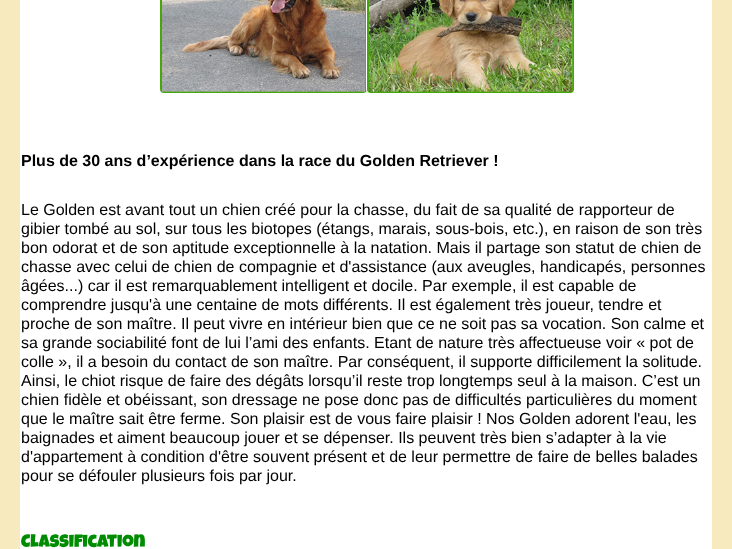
<!DOCTYPE html>
<meta charset="utf-8">
<style>body { margin: 0 } canvas { display: block }</style>
<canvas id="canvas" width="732" height="549"></canvas>
<img id="img1" src="images/1.png" hidden>
<img id="img2" src="images/2.png" hidden>
<script>
window.onload = function () {
    const canvas = document.getElementById('canvas');
    const context = canvas.getContext('2d');
    context.miterLimit = 4;
    context.fontKerning = 'normal';

    context.fillStyle = 'rgb(246, 234, 190)';
    context.fillRect(0, 0, 732, 549);
    context.fillStyle = 'rgb(255, 255, 255)';
    context.fillRect(21, 0, 690, 549);
    context.beginPath();
    context.moveTo(712, -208);
    context.lineTo(712, 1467);
    context.lineTo(711, 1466);
    context.lineTo(711, -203);
    context.closePath();
    context.fill();
    context.beginPath();
    context.moveTo(20, 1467);
    context.lineTo(20, -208);
    context.lineTo(21, -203);
    context.lineTo(21, 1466);
    context.closePath();
    context.fill();
    context.drawImage(document.getElementById('img1'), 160, 0, 207, 93);
    context.beginPath();
    context.roundRect(366.5, -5.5, 208, 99, 4.5);
    context.strokeStyle = 'rgb(255, 255, 255)';
    context.stroke();
    context.drawImage(document.getElementById('img2'), 367, 0, 207, 93);
    context.font = 'bold 16px Liberation Sans';
    context.fillStyle = 'rgb(0, 0, 0)';
    context.fillText('Plus de 30 ans d’expérience dans la race du Golden Retriever !', 21, 166);
    context.font = '16px Liberation Sans';
    context.fillText('Le Golden est avant tout un chien créé pour la chasse, du fait de sa qualité de rapporteur de', 21, 215);
    context.fillText('gibier tombé au sol, sur tous les biotopes (étangs, marais, sous-bois, etc.), en raison de son très', 21, 234);
    context.fillText('bon odorat et de son aptitude exceptionnelle à la natation. Mais il partage son statut de chien de', 21, 253);
    context.fillText('chasse avec celui de chien de compagnie et d\'assistance (aux aveugles, handicapés, personnes', 21, 272);
    context.fillText('âgées...) car il est remarquablement intelligent et docile. Par exemple, il est capable de', 21, 291);
    context.fillText('comprendre jusqu\'à une centaine de mots différents. Il est également très joueur, tendre et', 21, 310);
    context.fillText('proche de son maître. Il peut vivre en intérieur bien que ce ne soit pas sa vocation. Son calme et', 21, 329);
    context.fillText('sa grande sociabilité font de lui l’ami des enfants. Etant de nature très affectueuse voir « pot de', 21, 348);
    context.fillText('colle », il a besoin du contact de son maître. Par conséquent, il supporte difficilement la solitude.', 21, 367);
    context.fillText('Ainsi, le chiot risque de faire des dégâts lorsqu’il reste trop longtemps seul à la maison. C’est un', 21, 386);
    context.fillText('chien fidèle et obéissant, son dressage ne pose donc pas de difficultés particulières du moment', 21, 405);
    context.fillText('que le maître sait être ferme. Son plaisir est de vous faire plaisir ! Nos Golden adorent l\'eau, les', 21, 424);
    context.fillText('baignades et aiment beaucoup jouer et se dépenser. Ils peuvent très bien s’adapter à la vie', 21, 443);
    context.fillText('d\'appartement à condition d\'être souvent présent et de leur permettre de faire de belles balades', 21, 462);
    context.fillText('pour se défouler plusieurs fois par jour.', 21, 481);
    context.font = '18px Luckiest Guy';
    context.fillStyle = 'rgb(0, 140, 0)';
    context.fillText('Classification', 21, 547);
};
</script>
